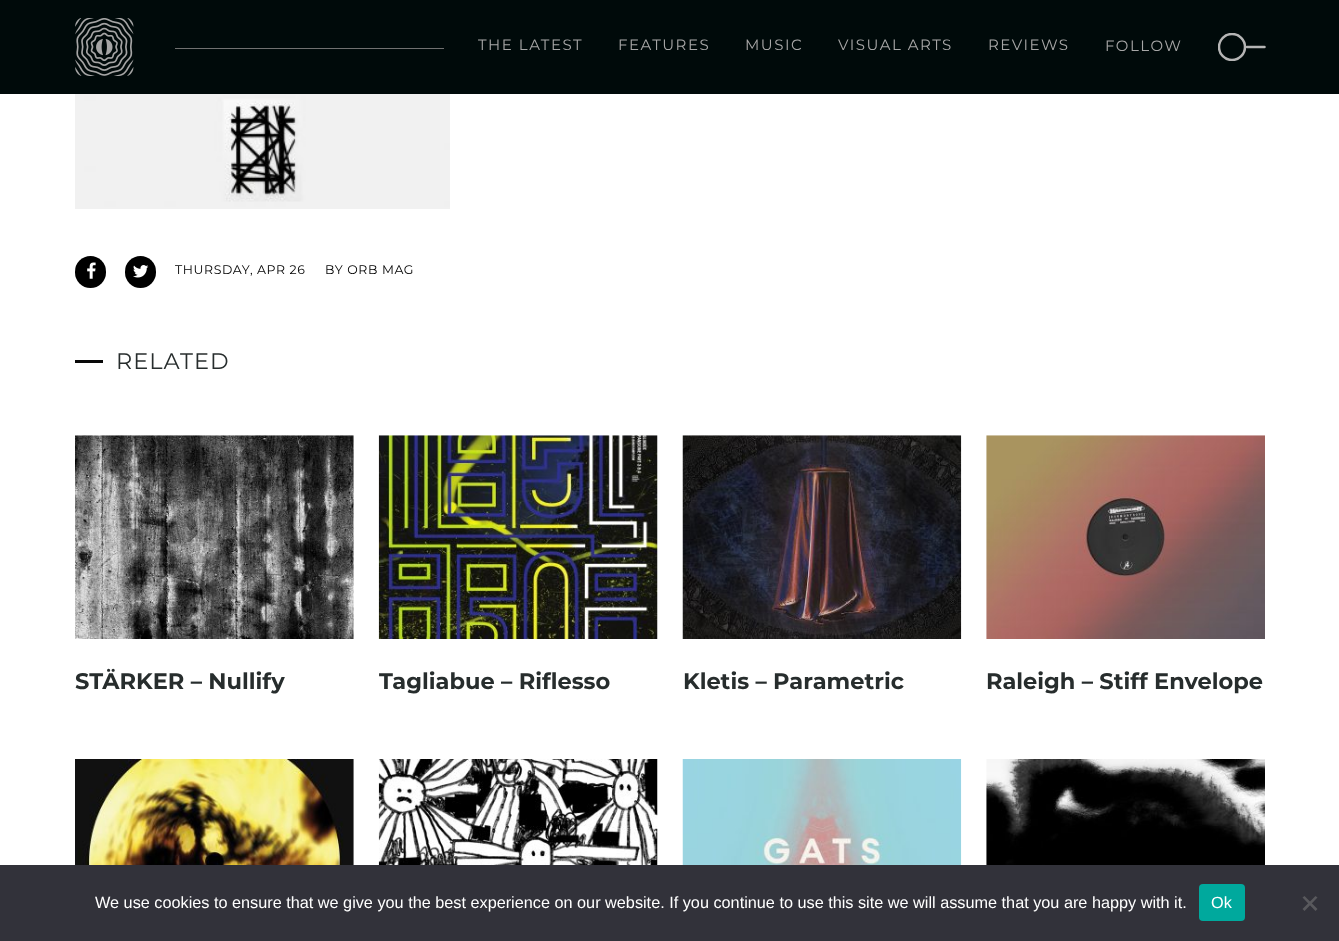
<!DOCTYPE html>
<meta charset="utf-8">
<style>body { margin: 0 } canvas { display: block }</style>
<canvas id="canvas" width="1339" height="941"></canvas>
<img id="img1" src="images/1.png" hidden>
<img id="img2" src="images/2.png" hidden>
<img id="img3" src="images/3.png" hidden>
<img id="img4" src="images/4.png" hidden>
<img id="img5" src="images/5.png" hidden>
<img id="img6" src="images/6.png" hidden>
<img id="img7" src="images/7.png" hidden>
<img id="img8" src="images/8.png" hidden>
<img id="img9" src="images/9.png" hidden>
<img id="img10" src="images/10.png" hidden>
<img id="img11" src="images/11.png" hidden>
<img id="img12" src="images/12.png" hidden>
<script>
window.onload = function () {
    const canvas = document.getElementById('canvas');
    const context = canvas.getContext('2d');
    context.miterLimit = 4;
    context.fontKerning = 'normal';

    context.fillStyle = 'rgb(255, 255, 255)';
    context.fillRect(0, 0, 1339, 941);
    context.fillStyle = 'rgb(0, 10, 10)';
    context.fillRect(0, 0, 1339, 94);
    context.drawImage(document.getElementById('img1'), 75, 18, 59, 58);
    context.fillStyle = 'rgb(112, 112, 112)';
    context.fillRect(175, 48, 269, 1);
    context.save();
    context.beginPath();
    context.rect(1218, 33, 47, 28);
    context.clip();
    context.beginPath();
    context.arc(1232, 47, 13, 0, 2 * Math.PI);
    context.strokeStyle = 'rgb(181, 181, 181)';
    context.lineWidth = 2.5;
    context.stroke();
    context.restore();
    context.beginPath();
    context.moveTo(1264.5, 47);
    context.lineTo(1247, 47);
    context.strokeStyle = 'rgb(181, 181, 181)';
    context.lineWidth = 2.5;
    context.lineCap = 'round';
    context.stroke();
    context.drawImage(document.getElementById('img2'), 75, 94, 375, 115);
    context.fillStyle = 'rgb(0, 0, 0)';
    context.beginPath();
    context.roundRect(75, 256, 31, 32, 15.5);
    context.fill();
    context.drawImage(document.getElementById('img3'), 87, 262, 9, 17);
    context.beginPath();
    context.roundRect(125, 256, 31, 32, 15.5);
    context.fill();
    context.drawImage(document.getElementById('img4'), 133, 265, 16, 13);
    context.fillStyle = 'rgb(8, 8, 8)';
    context.fillRect(75, 360, 28, 3);
    context.drawImage(document.getElementById('img5'), 75, 435, 279, 204);
    context.drawImage(document.getElementById('img6'), 378, 435, 280, 204);
    context.drawImage(document.getElementById('img7'), 682, 435, 280, 204);
    context.drawImage(document.getElementById('img8'), 986, 435, 279, 204);
    context.drawImage(document.getElementById('img9'), 75, 759, 279, 106);
    context.drawImage(document.getElementById('img10'), 378, 759, 280, 106);
    context.drawImage(document.getElementById('img11'), 682, 759, 280, 106);
    context.drawImage(document.getElementById('img12'), 986, 759, 279, 106);
    context.fillStyle = 'rgb(50, 50, 58)';
    context.fillRect(0, 865, 1339, 76);
    context.fillStyle = 'rgb(0, 169, 157)';
    context.beginPath();
    context.roundRect(1199, 884, 46, 37, 4);
    context.fill();
    context.fillStyle = 'rgb(89, 89, 93)';
    context.beginPath();
    context.moveTo(1315.5, 896);
    context.lineTo(1317.5, 897.5);
    context.lineTo(1304.5, 911);
    context.lineTo(1302.5, 909);
    context.closePath();
    context.fill();
    context.beginPath();
    context.moveTo(1302.5, 897.5);
    context.lineTo(1304.5, 896);
    context.lineTo(1317.5, 909);
    context.lineTo(1315.5, 911);
    context.closePath();
    context.fill();
    context.letterSpacing = '1.5px';
    context.font = '15px Montserrat';
    context.fillStyle = 'rgb(167, 167, 167)';
    context.fillText('THE LATEST', 478, 50);
    context.fillText('FEATURES', 618, 50);
    context.fillText('MUSIC', 745, 50);
    context.fillText('VISUAL ARTS', 838, 50);
    context.fillText('REVIEWS', 988, 50);
    context.fillText('FOLLOW', 1105, 51);
    context.letterSpacing = '0.6px';
    context.font = '12.5px Montserrat';
    context.fillStyle = 'rgb(0, 0, 0)';
    context.fillText('THURSDAY, APR 26', 175, 274);
    context.fillText('BY ORB MAG', 325, 274);
    context.letterSpacing = '1px';
    context.font = '22.5px Montserrat';
    context.fillStyle = 'rgb(39, 45, 45)';
    context.fillText('RELATED', 116, 369);
    context.letterSpacing = '0px';
    context.font = 'bold 22.5px Montserrat';
    context.fillText('STÄRKER – Nullify', 75, 689);
    context.fillText('Tagliabue – Riflesso', 379, 689);
    context.fillText('Kletis – Parametric', 683, 689);
    context.fillText('Raleigh – Stiff Envelope', 986, 689);
    context.font = '16.25px Liberation Sans';
    context.fillStyle = 'rgb(255, 255, 255)';
    context.fillText('We use cookies to ensure that we give you the best experience on our website. If you continue to use this site we will assume that you are happy with it.', 95, 908);
    context.fillText('Ok', 1211, 908);
};
</script>
